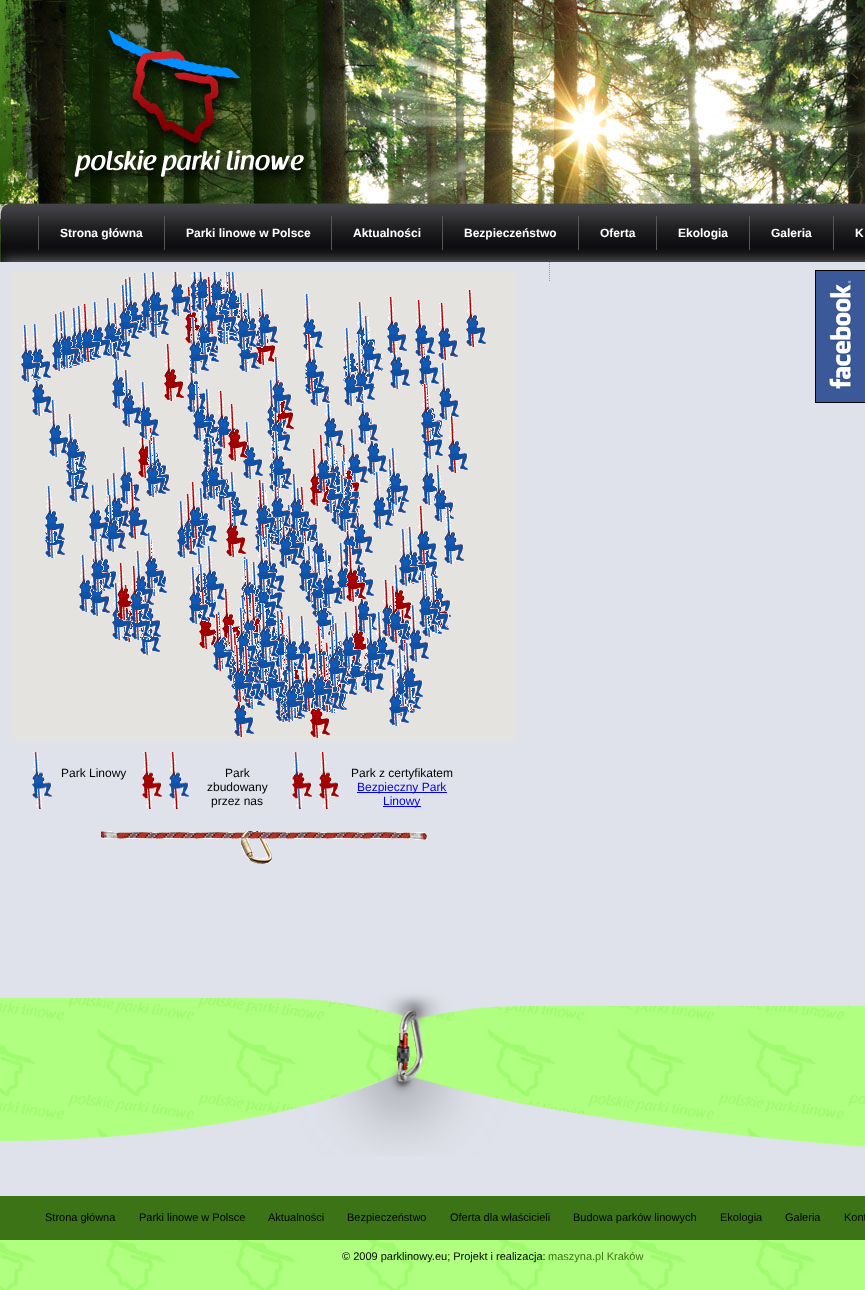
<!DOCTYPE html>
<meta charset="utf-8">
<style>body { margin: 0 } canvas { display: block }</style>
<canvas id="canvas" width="865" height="1290"></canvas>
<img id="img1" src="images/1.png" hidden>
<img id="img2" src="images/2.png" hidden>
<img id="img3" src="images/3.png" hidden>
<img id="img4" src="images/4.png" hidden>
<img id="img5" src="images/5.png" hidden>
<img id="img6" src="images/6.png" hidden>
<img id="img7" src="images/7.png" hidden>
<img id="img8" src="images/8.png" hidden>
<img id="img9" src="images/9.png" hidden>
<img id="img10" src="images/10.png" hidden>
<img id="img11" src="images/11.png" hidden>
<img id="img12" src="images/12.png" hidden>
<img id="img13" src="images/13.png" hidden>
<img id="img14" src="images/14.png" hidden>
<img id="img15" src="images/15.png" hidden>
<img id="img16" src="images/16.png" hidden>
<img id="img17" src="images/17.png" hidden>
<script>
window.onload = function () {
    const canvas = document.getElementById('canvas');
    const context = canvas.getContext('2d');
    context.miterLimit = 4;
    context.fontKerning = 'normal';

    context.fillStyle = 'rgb(255, 255, 255)';
    context.fillRect(0, 0, 865, 1290);
    context.drawImage(document.getElementById('img1'), 0, 997, 865, 293);
    context.drawImage(document.getElementById('img2'), 0, 0, 865, 262);
    context.drawImage(document.getElementById('img3'), 70, 30, 236, 153);
    context.fillStyle = 'rgb(86, 86, 87)';
    context.fillRect(38, 216, 1, 34);
    context.fillRect(164, 216, 1, 34);
    context.fillRect(331, 216, 1, 34);
    context.fillRect(442, 216, 1, 34);
    context.fillRect(578, 216, 1, 34);
    context.fillRect(656, 216, 1, 34);
    context.fillRect(749, 216, 1, 34);
    context.fillRect(833, 216, 1, 34);
    context.fillStyle = 'rgb(223, 226, 234)';
    context.fillRect(0, 262, 865, 718);
    context.drawImage(document.getElementById('img4'), 815, 270, 50, 133);
    context.beginPath();
    context.moveTo(549.5, 262);
    context.lineTo(549.5, 282);
    context.strokeStyle = 'rgb(154, 157, 162)';
    context.setLineDash([1, 1]);
    context.stroke();
    context.fillStyle = 'rgb(229, 227, 223)';
    context.fillRect(10, 272, 507, 470);
    context.drawImage(document.getElementById('img5'), 21, 273, 126, 218);
    context.drawImage(document.getElementById('img6'), 147, 272, 256, 219);
    context.drawImage(document.getElementById('img7'), 403, 290, 83, 201);
    context.drawImage(document.getElementById('img8'), 45, 491, 102, 164);
    context.drawImage(document.getElementById('img9'), 147, 491, 256, 247);
    context.drawImage(document.getElementById('img10'), 403, 491, 61, 233);
    context.drawImage(document.getElementById('img11'), 32, 752, 20, 57);
    context.drawImage(document.getElementById('img12'), 142, 752, 20, 57);
    context.drawImage(document.getElementById('img13'), 169, 752, 20, 57);
    context.drawImage(document.getElementById('img14'), 292, 752, 20, 57);
    context.drawImage(document.getElementById('img12'), 319, 752, 20, 57);
    context.fillStyle = 'rgb(0, 0, 238)';
    context.fillRect(357, 792, 90, 1);
    context.fillRect(383, 806, 38, 1);
    context.drawImage(document.getElementById('img15'), 101, 831, 326, 33);
    context.drawImage(document.getElementById('img16'), 0, 980, 865, 92);
    context.drawImage(document.getElementById('img17'), 0, 1072, 865, 84);
    context.fillStyle = 'rgb(223, 226, 234)';
    context.fillRect(0, 1156, 865, 40);
    context.fillStyle = 'rgb(61, 115, 23)';
    context.fillRect(0, 1196, 865, 44);
    context.font = 'bold 12px Liberation Sans';
    context.fillStyle = 'rgb(255, 255, 255)';
    context.fillText('Strona główna', 60, 237);
    context.fillText('Parki linowe w Polsce', 186, 237);
    context.fillText('Aktualności', 353, 237);
    context.fillText('Bezpieczeństwo', 464, 237);
    context.fillText('Oferta', 600, 237);
    context.fillText('Ekologia', 678, 237);
    context.fillText('Galeria', 771, 237);
    context.fillText('K', 855, 237);
    context.font = '12px Liberation Sans';
    context.fillStyle = 'rgb(0, 0, 0)';
    context.fillText('Park Linowy', 61, 777);
    context.fillText('Park', 225, 777);
    context.fillText('zbudowany', 207, 791);
    context.fillText('przez nas', 211, 805);
    context.fillText('Park z certyfikatem', 351, 777);
    context.fillStyle = 'rgb(0, 0, 238)';
    context.fillText('Bezpieczny Park', 357, 791);
    context.fillText('Linowy', 383, 805);
    context.font = '11px Liberation Sans';
    context.fillStyle = 'rgb(0, 0, 0)';
    context.fillText('Strona główna', 45, 1221);
    context.fillText('Parki linowe w Polsce', 139, 1221);
    context.fillText('Aktualności', 268, 1221);
    context.fillText('Bezpieczeństwo', 347, 1221);
    context.fillText('Oferta dla właścicieli', 450, 1221);
    context.fillText('Budowa parków linowych', 573, 1221);
    context.fillText('Ekologia', 720, 1221);
    context.fillText('Galeria', 785, 1221);
    context.fillText('Kont', 844, 1221);
    context.fillText('© 2009 parklinowy.eu; Projekt i realizacja:', 342, 1260);
    context.fillStyle = 'rgb(61, 115, 23)';
    context.fillText('maszyna.pl Kraków', 548, 1260);
};
</script>
